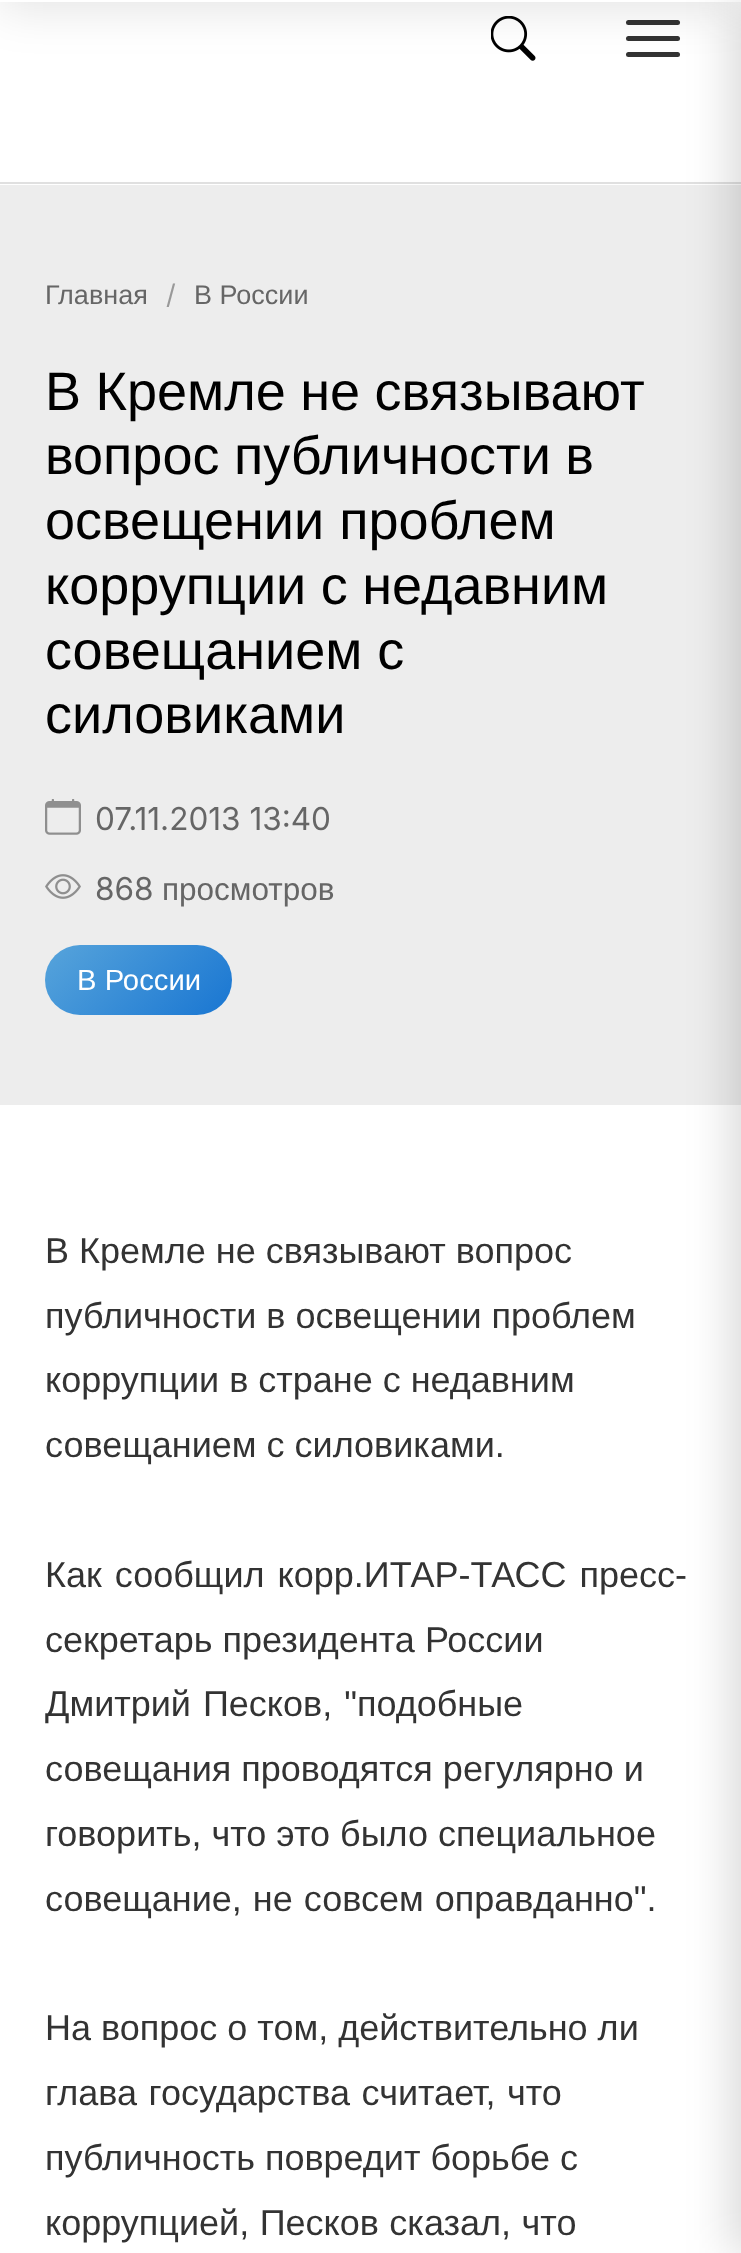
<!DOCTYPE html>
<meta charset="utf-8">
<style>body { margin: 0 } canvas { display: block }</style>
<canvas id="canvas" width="741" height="2253"></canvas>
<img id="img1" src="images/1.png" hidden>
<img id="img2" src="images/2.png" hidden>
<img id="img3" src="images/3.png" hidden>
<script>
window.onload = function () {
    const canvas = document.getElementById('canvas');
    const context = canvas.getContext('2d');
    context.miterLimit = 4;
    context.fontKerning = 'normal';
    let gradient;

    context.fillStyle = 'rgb(255, 255, 255)';
    context.fillRect(0, 0, 741, 2253);
    context.fillStyle = 'rgb(224, 224, 224)';
    context.fillRect(0, 182, 741, 2);
    context.fillStyle = 'rgb(51, 51, 51)';
    context.beginPath();
    context.roundRect(626, 20, 54, 5, 2.5);
    context.fill();
    context.beginPath();
    context.roundRect(626, 36, 54, 5, 2.5);
    context.fill();
    context.beginPath();
    context.roundRect(626, 52, 54, 5, 2.5);
    context.fill();
    context.drawImage(document.getElementById('img1'), 491, 16, 45, 45);
    context.fillStyle = 'rgba(0, 0, 0, 0.1)';
    context.filter = 'blur(22.5px)';
    context.beginPath();
    context.rect(0, -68, 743, 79);
    context.fill();
    context.filter = 'none';
    context.fillStyle = 'rgb(255, 255, 255)';
    context.fillRect(0, 0, 741, 2);
    context.fillStyle = 'rgb(237, 237, 237)';
    context.fillRect(0, 185, 741, 920);
    context.fillStyle = 'rgba(0, 0, 0, 0.15)';
    context.filter = 'blur(22.5px)';
    context.beginPath();
    context.rect(731, 0, 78, 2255);
    context.fill();
    context.filter = 'none';
    context.drawImage(document.getElementById('img2'), 45, 799, 36, 36);
    context.drawImage(document.getElementById('img3'), 45, 874, 36, 25);
    gradient = context.createLinearGradient(74, 916, 203, 1044);
    gradient.addColorStop(0, 'rgb(87, 164, 219)');
    gradient.addColorStop(1, 'rgb(25, 118, 210)');
    context.fillStyle = gradient;
    context.beginPath();
    context.roundRect(45, 945, 187, 70, 35);
    context.fill();
    context.font = '27px Liberation Sans';
    context.fillStyle = 'rgb(102, 102, 102)';
    context.fillText('Главная', 45, 304);
    context.font = '27px Inter';
    context.fillStyle = 'rgb(153, 153, 153)';
    context.fillText('/', 166, 304);
    context.font = '27px Liberation Sans';
    context.fillStyle = 'rgb(102, 102, 102)';
    context.fillText('В России', 194, 304);
    context.wordSpacing = '-0.5px';
    context.font = '54px Liberation Sans';
    context.fillStyle = 'rgb(0, 0, 0)';
    context.fillText('В Кремле не связывают', 45, 410);
    context.fillText('вопрос публичности в', 45, 474);
    context.wordSpacing = '0px';
    context.fillText('освещении проблем', 45, 539);
    context.wordSpacing = '-0.5px';
    context.fillText('коррупции с недавним', 45, 604);
    context.wordSpacing = '0px';
    context.fillText('совещанием с', 45, 669);
    context.fillText('силовиками', 45, 733);
    context.font = '31.5px Inter';
    context.fillStyle = 'rgb(102, 102, 102)';
    context.fillText('07.11.2013 13:40', 95, 830);
    context.fillText('868', 95, 900);
    context.font = '31.5px Liberation Sans';
    context.fillText('просмотров', 162, 900);
    context.font = '29.25px Liberation Sans';
    context.fillStyle = 'rgb(255, 255, 255)';
    context.fillText('В России', 77, 990);
    context.font = '36px Liberation Sans';
    context.fillStyle = 'rgb(51, 51, 51)';
    context.fillText('В Кремле не связывают вопрос', 45, 1263);
    context.fillText('публичности в освещении проблем', 45, 1328);
    context.fillText('коррупции в стране с недавним', 45, 1392);
    context.fillText('совещанием с силовиками.', 45, 1457);
    context.wordSpacing = '3px';
    context.fillText('Как сообщил корр.ИТАР-ТАСС пресс-', 45, 1587);
    context.wordSpacing = '0px';
    context.fillText('секретарь президента России', 45, 1652);
    context.wordSpacing = '2px';
    context.fillText('Дмитрий Песков, "подобные', 45, 1716);
    context.wordSpacing = '0px';
    context.fillText('совещания проводятся регулярно и', 45, 1781);
    context.fillText('говорить, что это было специальное', 45, 1846);
    context.wordSpacing = '1px';
    context.fillText('совещание, не совсем оправданно".', 45, 1911);
    context.wordSpacing = '0px';
    context.fillText('На вопрос о том, действительно ли', 45, 2040);
    context.wordSpacing = '1.5px';
    context.fillText('глава государства считает, что', 45, 2105);
    context.wordSpacing = '0px';
    context.fillText('публичность повредит борьбе с', 45, 2170);
    context.wordSpacing = '0.5px';
    context.fillText('коррупцией, Песков сказал, что', 45, 2235);
};
</script>
